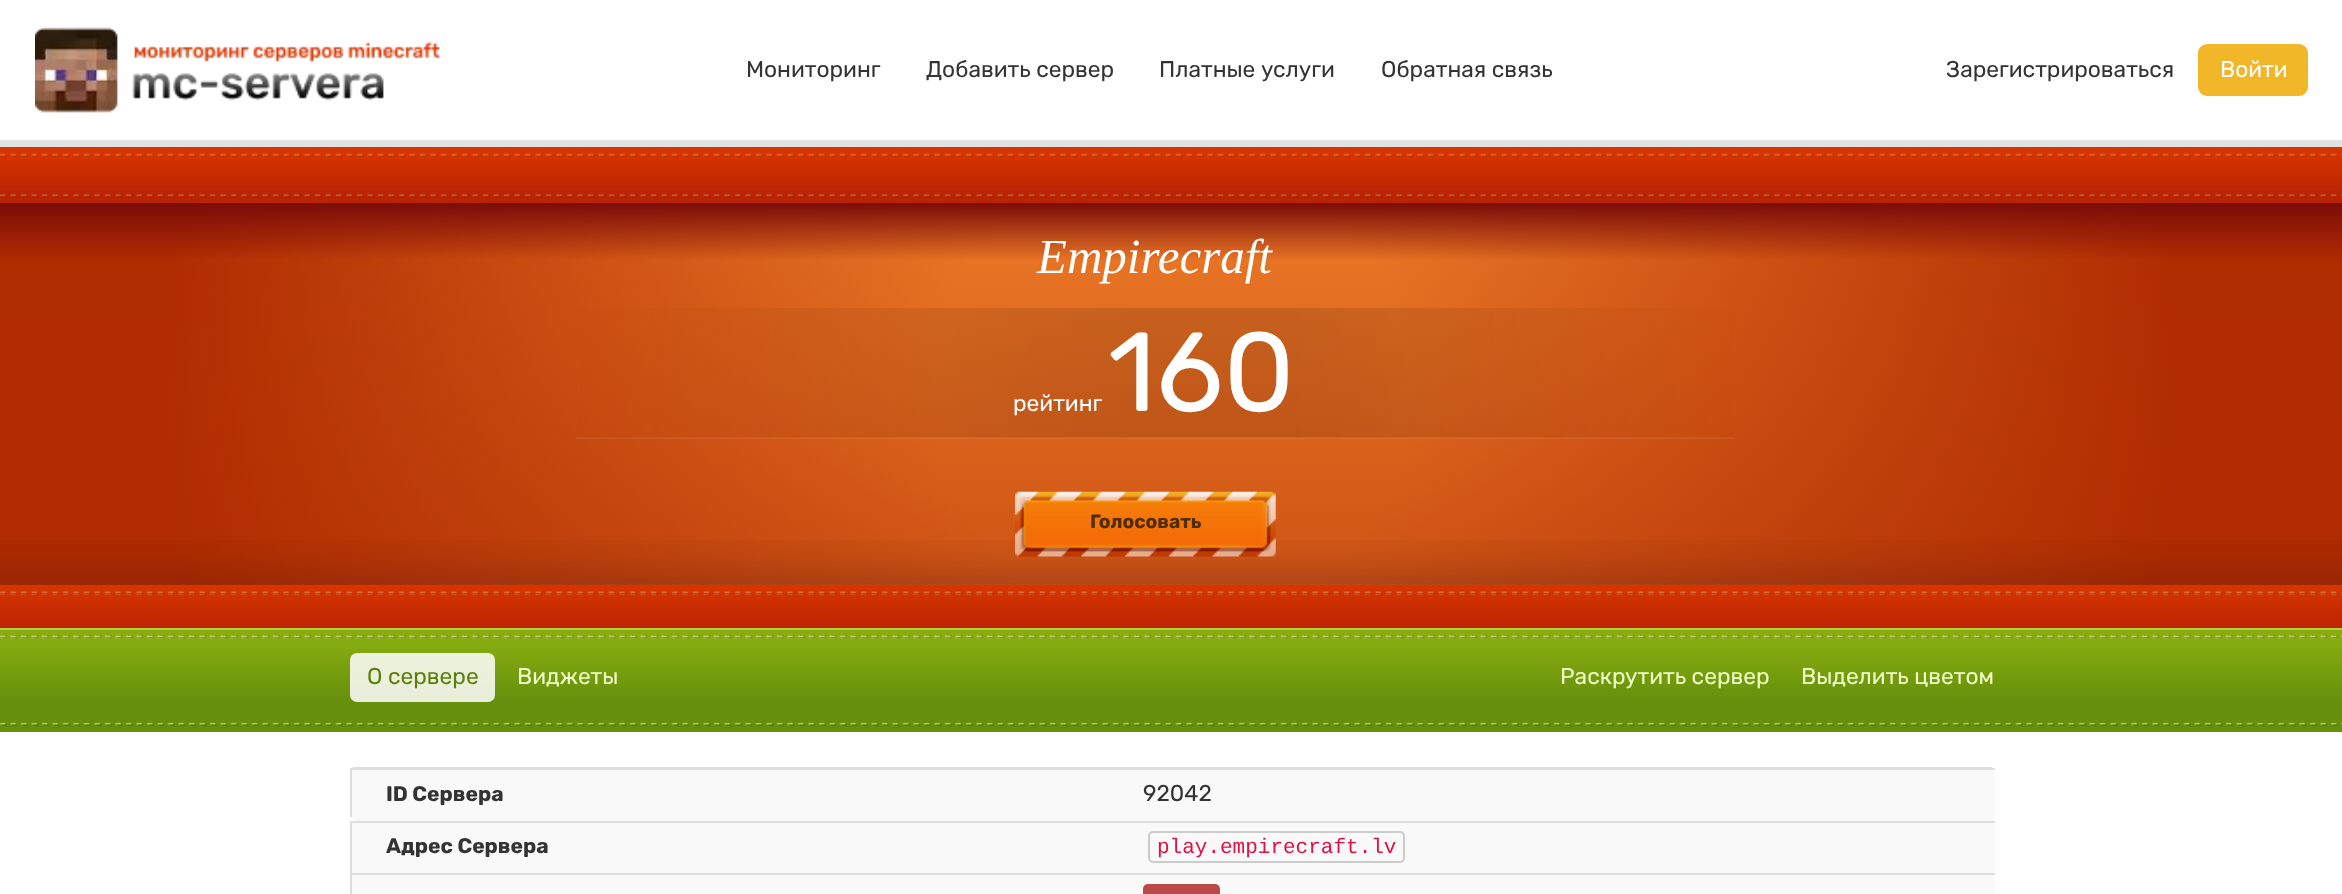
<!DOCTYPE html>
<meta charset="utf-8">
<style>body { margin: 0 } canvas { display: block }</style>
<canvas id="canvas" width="2342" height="894"></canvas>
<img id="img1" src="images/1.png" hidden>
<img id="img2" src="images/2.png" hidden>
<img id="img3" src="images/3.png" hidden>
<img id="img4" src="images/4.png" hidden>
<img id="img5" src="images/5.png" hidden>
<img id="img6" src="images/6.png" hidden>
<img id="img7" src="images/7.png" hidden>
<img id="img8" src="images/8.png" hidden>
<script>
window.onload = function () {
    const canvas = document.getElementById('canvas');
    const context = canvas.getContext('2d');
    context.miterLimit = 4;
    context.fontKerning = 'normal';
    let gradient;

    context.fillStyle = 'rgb(255, 255, 255)';
    context.fillRect(0, 0, 2342, 894);
    context.fillStyle = 'rgb(226, 226, 226)';
    context.fillRect(0, 140, 2342, 7);
    context.drawImage(document.getElementById('img1'), 35, 27, 406, 86);
    context.fillStyle = 'rgb(241, 183, 41)';
    context.beginPath();
    context.roundRect(2198, 44, 110, 52, 9);
    context.fill();
    gradient = context.createLinearGradient(1172, 147, 1172, 203);
    gradient.addColorStop(0, 'rgb(214, 53, 0)');
    gradient.addColorStop(0.1, 'rgb(214, 53, 0)');
    gradient.addColorStop(0.8, 'rgb(187, 36, 3)');
    gradient.addColorStop(1, 'rgb(187, 36, 3)');
    context.fillStyle = gradient;
    context.fillRect(0, 147, 2342, 56);
    context.drawImage(document.getElementById('img2'), 0, 147, 2342, 51);
    gradient = context.createRadialGradient(1172, 394, 0, 1172, 394, 1187);
    gradient.addColorStop(0.2, 'rgb(231, 115, 36)');
    gradient.addColorStop(0.85, 'rgb(176, 44, 1)');
    context.fillStyle = gradient;
    context.fillRect(0, 203, 2342, 382);
    gradient = context.createLinearGradient(1172, 585, 1172, 203);
    gradient.addColorStop(0, 'rgba(157, 40, 15, 0.5)');
    gradient.addColorStop(0.08, 'rgba(176, 43, 1, 0.4)');
    gradient.addColorStop(0.85, 'rgba(176, 43, 1, 0)');
    gradient.addColorStop(0.85, 'rgba(123, 12, 9, 0)');
    gradient.addColorStop(1, 'rgb(123, 12, 9)');
    context.fillStyle = gradient;
    context.fillRect(0, 203, 2342, 382);
    context.drawImage(document.getElementById('img3'), 0, 540, 2342, 45);
    context.drawImage(document.getElementById('img4'), 576, 308, 1158, 131);
    context.drawImage(document.getElementById('img5'), 1015, 491, 261, 66);
    gradient = context.createLinearGradient(1172, 584, 1172, 628);
    gradient.addColorStop(0, 'rgb(214, 53, 0)');
    gradient.addColorStop(0.1, 'rgb(214, 53, 0)');
    gradient.addColorStop(1, 'rgb(187, 36, 3)');
    context.fillStyle = gradient;
    context.fillRect(0, 585, 2342, 43);
    context.drawImage(document.getElementById('img6'), 0, 591, 2342, 4);
    gradient = context.createLinearGradient(1172, 630, 1172, 732);
    gradient.addColorStop(0, 'rgb(135, 172, 16)');
    gradient.addColorStop(0.1, 'rgb(135, 172, 16)');
    gradient.addColorStop(0.7, 'rgb(102, 144, 12)');
    context.fillStyle = gradient;
    context.fillRect(0, 630, 2342, 102);
    context.fillStyle = 'rgb(182, 207, 50)';
    context.fillRect(0, 628, 2342, 2);
    context.drawImage(document.getElementById('img7'), 0, 635, 2342, 4);
    context.fillStyle = 'rgba(255, 255, 255, 0.85)';
    context.beginPath();
    context.roundRect(350, 653, 145, 49, 7);
    context.fill();
    context.drawImage(document.getElementById('img8'), 0, 722, 2342, 4);
    context.save();
    context.beginPath();
    context.rect(350, 767, 1645, 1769);
    context.clip();
    context.fillStyle = 'rgb(221, 221, 221)';
    context.beginPath();
    context.moveTo(357, 766);
    context.lineTo(1988, 766);
    context.bezierCurveTo(1992, 766, 1995, 770, 1995, 774);
    context.lineTo(1995, 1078);
    context.bezierCurveTo(1995, 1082, 1992, 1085, 1988, 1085);
    context.lineTo(357, 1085);
    context.bezierCurveTo(353, 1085, 350, 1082, 350, 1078);
    context.lineTo(350, 774);
    context.bezierCurveTo(350, 770, 353, 766, 357, 766);
    context.closePath();
    context.moveTo(357, 768);
    context.lineTo(1988, 768);
    context.bezierCurveTo(1991, 768, 1993, 771, 1993, 774);
    context.lineTo(1993, 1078);
    context.bezierCurveTo(1993, 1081, 1991, 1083, 1988, 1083);
    context.lineTo(357, 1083);
    context.bezierCurveTo(353, 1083, 350, 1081, 350, 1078);
    context.lineTo(350, 774);
    context.bezierCurveTo(350, 771, 353, 768, 357, 768);
    context.closePath();
    context.fill('evenodd');
    context.restore();
    context.fillStyle = 'rgb(249, 249, 249)';
    context.beginPath();
    context.roundRect(350, 768, 1645, 53, [0, 0, 0, 7]);
    context.fill();
    context.fillStyle = 'rgb(221, 221, 221)';
    context.fillRect(350, 768, 1645, 2);
    context.fillRect(350, 768, 2, 49);
    context.fillStyle = 'rgb(249, 249, 249)';
    context.fillRect(352, 823, 1643, 50);
    context.fillStyle = 'rgb(221, 221, 221)';
    context.fillRect(350, 821, 1645, 2);
    context.fillRect(350, 821, 2, 52);
    context.beginPath();
    context.roundRect(1149, 832, 255, 30, 4);
    context.strokeStyle = 'rgb(204, 204, 204)';
    context.lineWidth = 2;
    context.stroke();
    context.fillStyle = 'rgb(249, 249, 249)';
    context.fillRect(352, 875, 1643, 19);
    context.fillStyle = 'rgb(221, 221, 221)';
    context.fillRect(350, 873, 1645, 2);
    context.fillRect(350, 873, 2, 21);
    context.fillStyle = 'rgb(185, 74, 72)';
    context.beginPath();
    context.roundRect(1143, 884, 77, 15, 5);
    context.fill();
    context.font = '22.75px Rubik';
    context.fillStyle = 'rgb(51, 51, 51)';
    context.fillText('Мониторинг', 746, 77);
    context.fillText('Добавить сервер', 926, 77);
    context.fillText('Платные услуги', 1159, 77);
    context.fillText('Обратная связь', 1381, 77);
    context.fillText('Зарегистрироваться', 1946, 77);
    context.fillStyle = 'rgb(255, 255, 255)';
    context.fillText('Войти', 2220, 77);
    context.font = 'italic 49px Liberation Serif';
    context.fillText('Empirecraft', 1037, 273);
    context.font = '22.75px Rubik';
    context.fillText('рейтинг', 1013, 411);
    context.font = '112px Rubik';
    context.fillText('160', 1108, 411);
    context.font = 'bold 19.25px Rubik';
    context.fillStyle = 'rgb(80, 45, 3)';
    context.fillText('Голосовать', 1090, 528);
    context.font = '22.75px Rubik';
    context.fillStyle = 'rgb(92, 126, 13)';
    context.fillText('О сервере', 367, 684);
    context.fillStyle = 'rgb(240, 254, 199)';
    context.fillText('Виджеты', 517, 684);
    context.fillText('Раскрутить сервер', 1560, 684);
    context.fillText('Выделить цветом', 1801, 684);
    context.font = 'bold 21px Rubik';
    context.fillStyle = 'rgb(51, 51, 51)';
    context.fillText('ID Сервера', 386, 801);
    context.font = '22.75px Rubik';
    context.fillText('92042', 1143, 801);
    context.font = 'bold 21px Rubik';
    context.fillText('Адрес Сервера', 386, 853);
    context.font = '21px Liberation Mono';
    context.fillStyle = 'rgb(221, 17, 68)';
    context.fillText('play.empirecraft.lv', 1157, 853);
};
</script>
